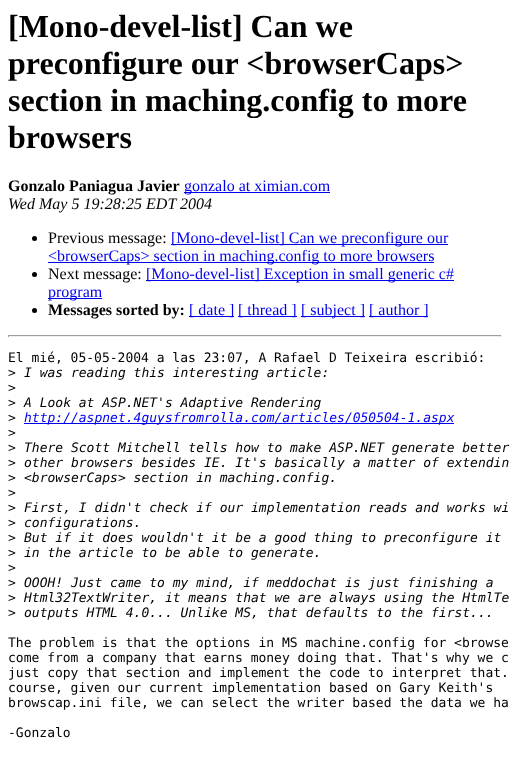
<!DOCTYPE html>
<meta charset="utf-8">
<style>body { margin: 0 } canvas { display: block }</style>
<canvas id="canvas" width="510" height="778"></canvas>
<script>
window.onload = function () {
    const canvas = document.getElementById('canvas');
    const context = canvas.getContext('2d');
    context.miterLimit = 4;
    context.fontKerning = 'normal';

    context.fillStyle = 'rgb(255, 255, 255)';
    context.fillRect(0, 0, 510, 778);
    context.fillStyle = 'rgb(0, 0, 238)';
    context.fillRect(184, 192, 146, 1);
    context.fillStyle = 'rgb(0, 0, 0)';
    context.beginPath();
    context.arc(34.5, 238.5, 2.5, 0, 2 * Math.PI);
    context.fill();
    context.fillStyle = 'rgb(0, 0, 238)';
    context.fillRect(171, 244, 277, 1);
    context.fillRect(48, 262, 386, 1);
    context.fillStyle = 'rgb(0, 0, 0)';
    context.beginPath();
    context.arc(34.5, 274.5, 2.5, 0, 2 * Math.PI);
    context.fill();
    context.fillStyle = 'rgb(0, 0, 238)';
    context.fillRect(146, 280, 308, 1);
    context.fillRect(48, 298, 54, 1);
    context.fillStyle = 'rgb(0, 0, 0)';
    context.beginPath();
    context.arc(34.5, 310.5, 2.5, 0, 2 * Math.PI);
    context.fill();
    context.fillStyle = 'rgb(0, 0, 238)';
    context.fillRect(189, 316, 45, 1);
    context.fillRect(238, 316, 59, 1);
    context.fillRect(301, 316, 64, 1);
    context.fillRect(369, 316, 59, 1);
    context.fillStyle = 'rgb(159, 159, 159)';
    context.fillRect(8, 335, 494, 1);
    context.fillStyle = 'rgb(238, 238, 238)';
    context.fillRect(501, 335, 1, 2);
    context.fillRect(8, 336, 494, 1);
    context.fillStyle = 'rgb(159, 159, 159)';
    context.fillRect(8, 335, 1, 2);
    context.fillStyle = 'rgb(0, 0, 238)';
    context.fillRect(24, 423, 430, 1);
    context.font = 'bold 32px Liberation Serif';
    context.fillStyle = 'rgb(0, 0, 0)';
    context.fillText('[Mono-devel-list] Can we', 8, 37);
    context.fillText('preconfigure our <browserCaps>', 8, 74);
    context.fillText('section in maching.config to more', 8, 111);
    context.fillText('browsers', 8, 148);
    context.font = 'bold 16px Liberation Serif';
    context.fillText('Gonzalo Paniagua Javier', 8, 191);
    context.font = '16px Liberation Serif';
    context.fillStyle = 'rgb(0, 0, 238)';
    context.fillText('gonzalo at ximian.com', 184, 191);
    context.font = 'italic 16px Liberation Serif';
    context.fillStyle = 'rgb(0, 0, 0)';
    context.fillText('Wed May 5 19:28:25 EDT 2004', 8, 209);
    context.font = '16px Liberation Serif';
    context.fillText('Previous message:', 48, 243);
    context.fillStyle = 'rgb(0, 0, 238)';
    context.fillText('[Mono-devel-list] Can we preconfigure our', 171, 243);
    context.fillText('<browserCaps> section in maching.config to more browsers', 48, 261);
    context.fillStyle = 'rgb(0, 0, 0)';
    context.fillText('Next message:', 48, 279);
    context.fillStyle = 'rgb(0, 0, 238)';
    context.fillText('[Mono-devel-list] Exception in small generic c#', 146, 279);
    context.fillText('program', 48, 297);
    context.font = 'bold 16px Liberation Serif';
    context.fillStyle = 'rgb(0, 0, 0)';
    context.fillText('Messages sorted by:', 48, 315);
    context.font = '16px Liberation Serif';
    context.fillStyle = 'rgb(0, 0, 238)';
    context.fillText('[ date ]', 189, 315);
    context.fillText('[ thread ]', 238, 315);
    context.fillText('[ subject ]', 301, 315);
    context.fillText('[ author ]', 369, 315);
    context.font = '13px DejaVu Sans Mono';
    context.fillStyle = 'rgb(0, 0, 0)';
    context.fillText('El mié, 05-05-2004 a las 23:07, A Rafael D Teixeira escribió:', 8, 362);
    context.fillText('>', 8, 377);
    context.font = 'italic 13px DejaVu Sans Mono';
    context.fillText('I was reading this interesting article:', 24, 377);
    context.font = '13px DejaVu Sans Mono';
    context.fillText('>', 8, 392);
    context.fillText('>', 8, 407);
    context.font = 'italic 13px DejaVu Sans Mono';
    context.fillText('A Look at ASP.NET\'s Adaptive Rendering', 24, 407);
    context.font = '13px DejaVu Sans Mono';
    context.fillText('>', 8, 422);
    context.font = 'italic 13px DejaVu Sans Mono';
    context.fillStyle = 'rgb(0, 0, 238)';
    context.fillText('http://aspnet.4guysfromrolla.com/articles/050504-1.aspx', 24, 422);
    context.font = '13px DejaVu Sans Mono';
    context.fillStyle = 'rgb(0, 0, 0)';
    context.fillText('>', 8, 437);
    context.fillText('>', 8, 452);
    context.font = 'italic 13px DejaVu Sans Mono';
    context.fillText('There Scott Mitchell tells how to make ASP.NET generate better', 24, 452);
    context.font = '13px DejaVu Sans Mono';
    context.fillText('>', 8, 467);
    context.font = 'italic 13px DejaVu Sans Mono';
    context.fillText('other browsers besides IE. It\'s basically a matter of extendin', 24, 467);
    context.font = '13px DejaVu Sans Mono';
    context.fillText('>', 8, 482);
    context.font = 'italic 13px DejaVu Sans Mono';
    context.fillText('<browserCaps> section in maching.config.', 24, 482);
    context.font = '13px DejaVu Sans Mono';
    context.fillText('>', 8, 497);
    context.fillText('>', 8, 512);
    context.font = 'italic 13px DejaVu Sans Mono';
    context.fillText('First, I didn\'t check if our implementation reads and works wi', 24, 512);
    context.font = '13px DejaVu Sans Mono';
    context.fillText('>', 8, 527);
    context.font = 'italic 13px DejaVu Sans Mono';
    context.fillText('configurations.', 24, 527);
    context.font = '13px DejaVu Sans Mono';
    context.fillText('>', 8, 542);
    context.font = 'italic 13px DejaVu Sans Mono';
    context.fillText('But if it does wouldn\'t it be a good thing to preconfigure it', 24, 542);
    context.font = '13px DejaVu Sans Mono';
    context.fillText('>', 8, 557);
    context.font = 'italic 13px DejaVu Sans Mono';
    context.fillText('in the article to be able to generate.', 24, 557);
    context.font = '13px DejaVu Sans Mono';
    context.fillText('>', 8, 572);
    context.fillText('>', 8, 587);
    context.font = 'italic 13px DejaVu Sans Mono';
    context.fillText('OOOH! Just came to my mind, if meddochat is just finishing a', 24, 587);
    context.font = '13px DejaVu Sans Mono';
    context.fillText('>', 8, 602);
    context.font = 'italic 13px DejaVu Sans Mono';
    context.fillText('Html32TextWriter, it means that we are always using the HtmlTe', 24, 602);
    context.font = '13px DejaVu Sans Mono';
    context.fillText('>', 8, 617);
    context.font = 'italic 13px DejaVu Sans Mono';
    context.fillText('outputs HTML 4.0... Unlike MS, that defaults to the first...', 24, 617);
    context.font = '13px DejaVu Sans Mono';
    context.fillText('The problem is that the options in MS machine.config for <browse', 8, 647);
    context.fillText('come from a company that earns money doing that. That\'s why we c', 8, 662);
    context.fillText('just copy that section and implement the code to interpret that.', 8, 677);
    context.fillText('course, given our current implementation based on Gary Keith\'s', 8, 692);
    context.fillText('browscap.ini file, we can select the writer based the data we ha', 8, 707);
    context.fillText('-Gonzalo', 8, 737);
};
</script>
